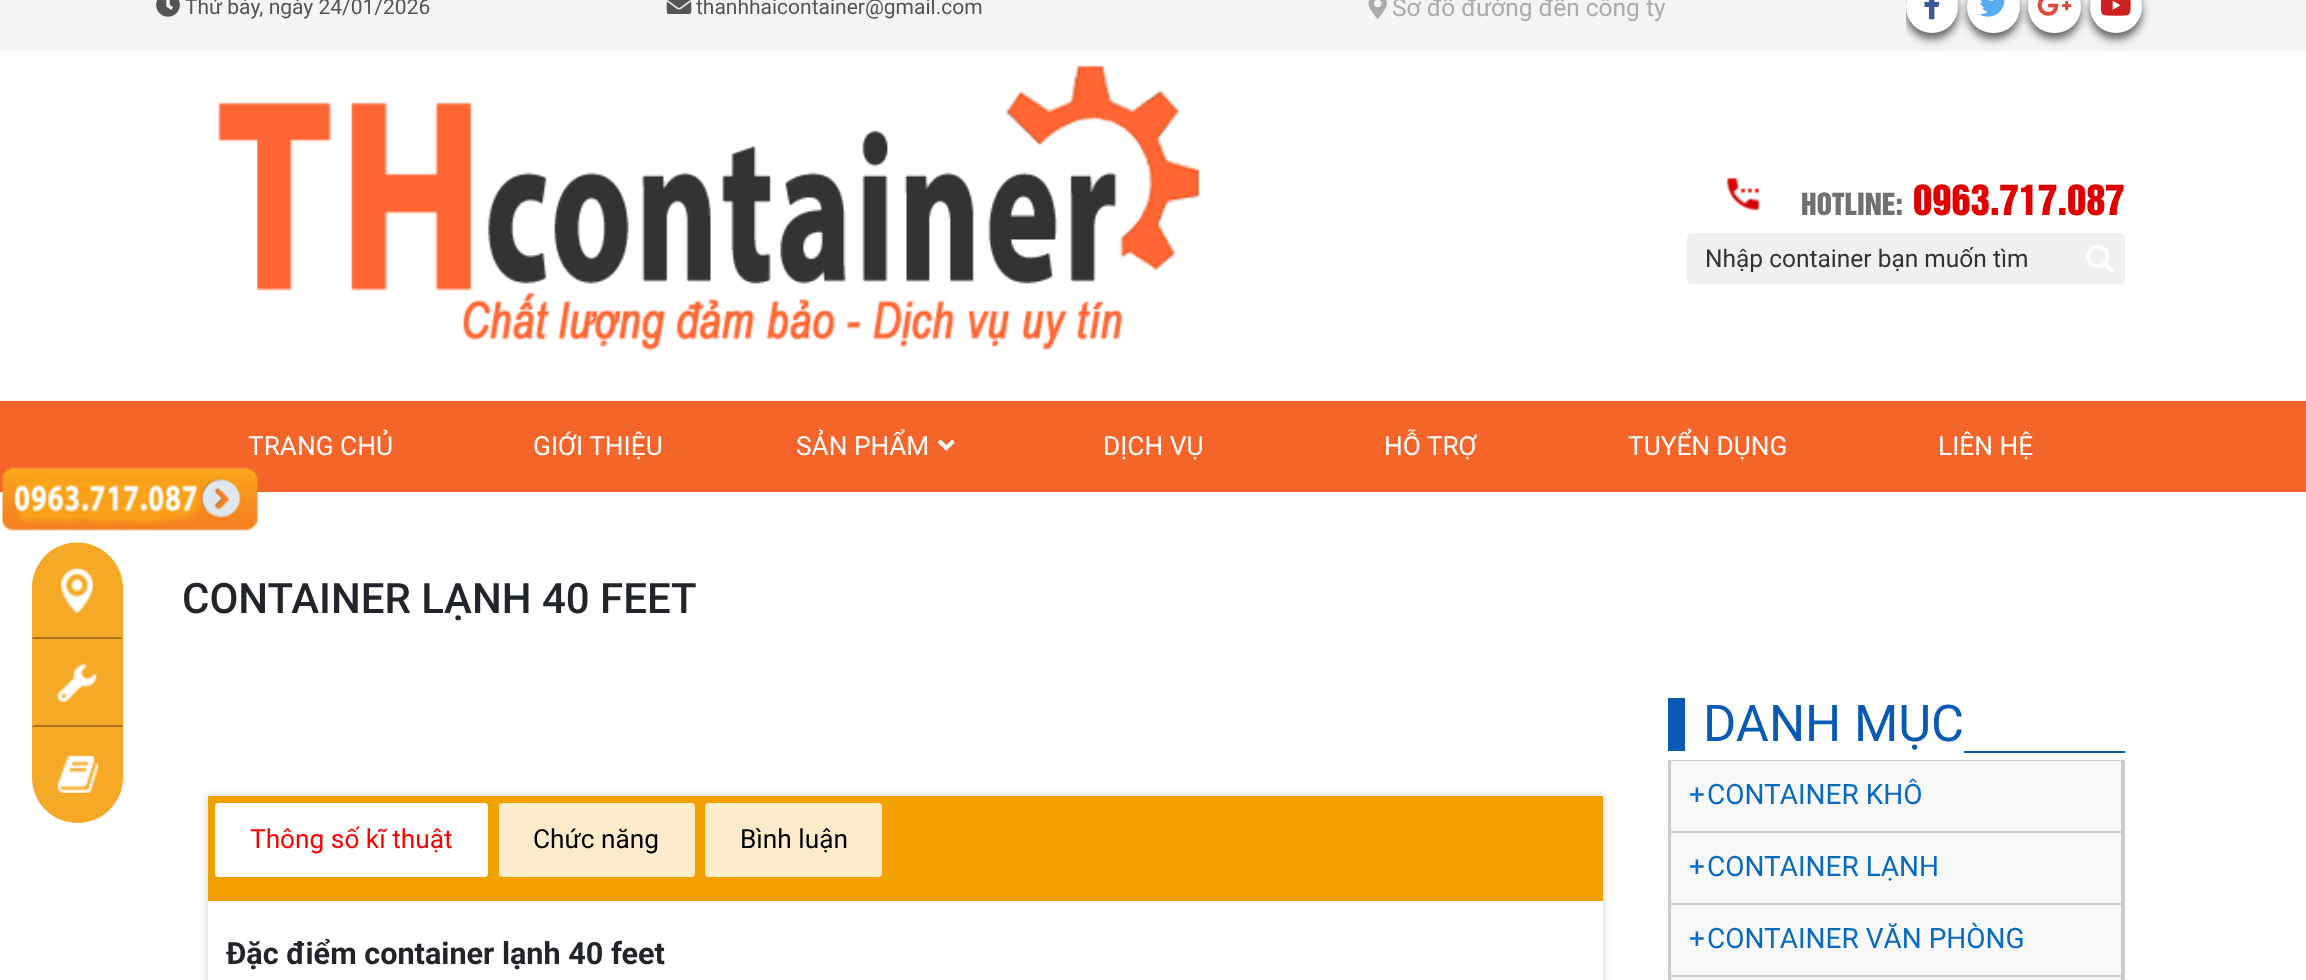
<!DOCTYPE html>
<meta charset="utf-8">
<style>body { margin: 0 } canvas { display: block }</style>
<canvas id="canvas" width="2306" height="980"></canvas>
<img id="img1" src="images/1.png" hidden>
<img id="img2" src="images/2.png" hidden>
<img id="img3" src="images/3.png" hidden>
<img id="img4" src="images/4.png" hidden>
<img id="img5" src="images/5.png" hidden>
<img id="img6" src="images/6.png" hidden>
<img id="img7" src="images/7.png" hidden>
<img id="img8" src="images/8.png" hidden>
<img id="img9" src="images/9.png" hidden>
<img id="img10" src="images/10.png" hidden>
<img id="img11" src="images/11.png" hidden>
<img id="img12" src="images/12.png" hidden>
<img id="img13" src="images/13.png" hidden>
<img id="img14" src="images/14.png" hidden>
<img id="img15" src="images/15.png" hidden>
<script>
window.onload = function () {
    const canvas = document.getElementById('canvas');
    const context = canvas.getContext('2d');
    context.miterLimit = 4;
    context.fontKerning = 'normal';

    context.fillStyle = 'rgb(255, 255, 255)';
    context.fillRect(0, 0, 2306, 980);
    context.fillStyle = 'rgb(245, 100, 40)';
    context.fillRect(0, 401, 2306, 91);
    context.drawImage(document.getElementById('img1'), 2, 467, 256, 64);
    context.fillStyle = 'rgb(244, 244, 244)';
    context.fillRect(0, 0, 2306, 51);
    context.drawImage(document.getElementById('img2'), 156, 0, 24, 17);
    context.drawImage(document.getElementById('img3'), 666, 0, 26, 14);
    context.drawImage(document.getElementById('img4'), 1368, 0, 19, 19);
    context.save();
    context.beginPath();
    context.rect(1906, 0, 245, 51);
    context.clip();
    context.fillStyle = 'rgb(97, 97, 97)';
    context.filter = 'blur(4.5px)';
    context.beginPath();
    context.roundRect(1906, -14, 52, 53, 26);
    context.fill();
    context.filter = 'none';
    context.restore();
    context.fillStyle = 'rgb(255, 255, 255)';
    context.beginPath();
    context.arc(1932, 7, 26, 0, 2 * Math.PI);
    context.fill();
    context.drawImage(document.getElementById('img5'), 1924, 0, 16, 20);
    context.fillStyle = 'rgb(97, 97, 97)';
    context.filter = 'blur(4.5px)';
    context.beginPath();
    context.roundRect(1967, -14, 53, 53, 26.5);
    context.fill();
    context.filter = 'none';
    context.fillStyle = 'rgb(255, 255, 255)';
    context.beginPath();
    context.roundRect(1967, -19, 53, 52, 26);
    context.fill();
    context.drawImage(document.getElementById('img6'), 1979, 0, 26, 17);
    context.fillStyle = 'rgb(97, 97, 97)';
    context.filter = 'blur(4.5px)';
    context.beginPath();
    context.roundRect(2028, -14, 53, 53, 26.5);
    context.fill();
    context.filter = 'none';
    context.fillStyle = 'rgb(255, 255, 255)';
    context.beginPath();
    context.roundRect(2028, -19, 53, 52, 26);
    context.fill();
    context.drawImage(document.getElementById('img7'), 2037, 0, 35, 16);
    context.fillStyle = 'rgb(97, 97, 97)';
    context.filter = 'blur(4.5px)';
    context.beginPath();
    context.roundRect(2090, -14, 52, 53, 26);
    context.fill();
    context.filter = 'none';
    context.fillStyle = 'rgb(255, 255, 255)';
    context.beginPath();
    context.arc(2116, 7, 26, 0, 2 * Math.PI);
    context.fill();
    context.drawImage(document.getElementById('img8'), 2100, 0, 31, 16);
    context.drawImage(document.getElementById('img9'), 218, 65, 982, 286);
    context.drawImage(document.getElementById('img10'), 1726, 177, 34, 34);
    context.fillStyle = 'rgb(240, 240, 240)';
    context.beginPath();
    context.roundRect(1687, 233, 438, 51, 5);
    context.fill();
    context.drawImage(document.getElementById('img11'), 2086, 245, 28, 28);
    context.drawImage(document.getElementById('img12'), 938, 439, 17, 12);
    context.save();
    context.beginPath();
    context.moveTo(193, 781);
    context.lineTo(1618, 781);
    context.lineTo(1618, 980);
    context.lineTo(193, 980);
    context.closePath();
    context.moveTo(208, 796);
    context.lineTo(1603, 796);
    context.lineTo(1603, 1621);
    context.lineTo(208, 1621);
    context.closePath();
    context.clip('evenodd');
    context.fillStyle = 'rgb(204, 204, 204)';
    context.filter = 'blur(4.5px)';
    context.beginPath();
    context.rect(208, 796, 1395, 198);
    context.fill();
    context.filter = 'none';
    context.restore();
    context.fillStyle = 'rgb(243, 161, 0)';
    context.fillRect(208, 796, 1395, 105);
    context.fillStyle = 'rgb(255, 255, 255)';
    context.beginPath();
    context.roundRect(215, 803, 273, 74, 4);
    context.fill();
    context.fillStyle = 'rgb(253, 236, 204)';
    context.beginPath();
    context.roundRect(499, 803, 196, 74, 4);
    context.fill();
    context.beginPath();
    context.roundRect(705, 803, 177, 74, 4);
    context.fill();
    context.fillStyle = 'rgb(9, 89, 182)';
    context.fillRect(1668, 698, 17, 53);
    context.fillRect(1964, 751, 161, 2);
    context.fillStyle = 'rgb(204, 204, 204)';
    context.fillRect(2123, 760, 2, 220);
    context.fillRect(1668, 760, 2, 220);
    context.strokeStyle = 'rgb(204, 204, 204)';
    context.lineWidth = 2;
    context.strokeRect(1671, 761, 451, 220);
    context.fillStyle = 'rgb(248, 248, 248)';
    context.fillRect(1671, 761, 450, 70);
    context.fillStyle = 'rgb(204, 204, 204)';
    context.fillRect(1671, 831, 450, 2);
    context.fillStyle = 'rgb(248, 248, 248)';
    context.fillRect(1671, 833, 450, 70);
    context.fillStyle = 'rgb(204, 204, 204)';
    context.fillRect(1671, 903, 450, 2);
    context.fillStyle = 'rgb(248, 248, 248)';
    context.fillRect(1671, 905, 450, 70);
    context.fillStyle = 'rgb(204, 204, 204)';
    context.fillRect(1671, 975, 450, 2);
    context.fillStyle = 'rgb(248, 248, 248)';
    context.fillRect(1671, 977, 450, 3);
    context.fillStyle = 'rgb(245, 169, 39)';
    context.beginPath();
    context.roundRect(32, 543, 91, 280, 45.5);
    context.fill();
    context.beginPath();
    context.moveTo(77, 544);
    context.bezierCurveTo(65, 544, 54, 549, 46, 557);
    context.lineTo(45, 556);
    context.bezierCurveTo(62, 538, 92, 538, 109, 556);
    context.lineTo(108, 557);
    context.bezierCurveTo(100, 549, 89, 544, 77, 544);
    context.closePath();
    context.fill();
    context.beginPath();
    context.moveTo(109, 556);
    context.bezierCurveTo(117, 564, 122, 576, 122, 588);
    context.lineTo(122, 638);
    context.lineTo(121, 637);
    context.lineTo(121, 588);
    context.bezierCurveTo(121, 576, 116, 565, 108, 557);
    context.closePath();
    context.fill();
    context.fillStyle = 'rgb(168, 116, 27)';
    context.beginPath();
    context.moveTo(32, 639);
    context.lineTo(33, 637);
    context.lineTo(121, 637);
    context.lineTo(122, 638);
    context.lineTo(122, 639);
    context.closePath();
    context.fill();
    context.fillStyle = 'rgb(245, 169, 39)';
    context.beginPath();
    context.moveTo(32, 638);
    context.lineTo(33, 637);
    context.lineTo(33, 588);
    context.bezierCurveTo(33, 576, 38, 565, 46, 557);
    context.lineTo(45, 556);
    context.bezierCurveTo(37, 564, 32, 576, 32, 588);
    context.closePath();
    context.fill();
    context.drawImage(document.getElementById('img13'), 61, 568, 32, 45);
    context.fillStyle = 'rgb(168, 116, 27)';
    context.fillRect(32, 725, 91, 2);
    context.fillStyle = 'rgb(245, 169, 39)';
    context.fillRect(32, 725, 2, 1);
    context.drawImage(document.getElementById('img14'), 57, 662, 40, 40);
    context.drawImage(document.getElementById('img15'), 57, 755, 41, 38);
    context.font = '21px Roboto';
    context.fillStyle = 'rgb(84, 84, 84)';
    context.fillText('Thứ bảy, ngày 24/01/2026', 185, 14);
    context.fillText('thanhhaicontainer@gmail.com', 696, 14);
    context.font = '24.5px Roboto';
    context.fillStyle = 'rgb(171, 171, 171)';
    context.fillText('Sơ đồ đường đến công ty', 1392, 16);
    context.font = '28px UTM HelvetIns';
    context.fillStyle = 'rgb(112, 112, 112)';
    context.fillText('HOTLINE:', 1801, 215);
    context.font = '38.5px UTM HelvetIns';
    context.fillStyle = 'rgb(224, 0, 0)';
    context.fillText('0963.717.087', 1913, 215);
    context.font = '24.5px Roboto';
    context.fillStyle = 'rgb(51, 51, 51)';
    context.fillText('Nhập container bạn muốn tìm', 1705, 267);
    context.font = '26.25px Roboto';
    context.fillStyle = 'rgb(255, 255, 255)';
    context.fillText('TRANG CHỦ', 248, 455);
    context.fillText('GIỚI THIỆU', 533, 455);
    context.fillText('SẢN PHẨM', 796, 455);
    context.fillText('DỊCH VỤ', 1103, 455);
    context.fillText('HỖ TRỢ', 1384, 455);
    context.fillText('TUYỂN DỤNG', 1628, 455);
    context.fillText('LIÊN HỆ', 1938, 455);
    context.font = '500 42px Roboto';
    context.fillStyle = 'rgb(33, 37, 41)';
    context.fillText('CONTAINER LẠNH 40 FEET', 182, 613);
    context.font = '26.25px Roboto';
    context.fillStyle = 'rgb(255, 0, 0)';
    context.fillText('Thông số kĩ thuật', 250, 848);
    context.fillStyle = 'rgb(0, 0, 0)';
    context.fillText('Chức năng', 533, 848);
    context.fillText('Bình luận', 740, 848);
    context.font = 'bold 30.6px Roboto';
    context.fillStyle = 'rgb(33, 37, 41)';
    context.fillText('Đặc điểm container lạnh 40 feet', 226, 964);
    context.font = '50.75px Roboto';
    context.fillStyle = 'rgb(9, 89, 182)';
    context.fillText('DANH MỤC', 1703, 741);
    context.font = '28px Roboto';
    context.fillStyle = 'rgb(8, 107, 193)';
    context.fillText('+', 1689, 804);
    context.fillText('CONTAINER KHÔ', 1707, 804);
    context.fillText('+', 1689, 876);
    context.fillText('CONTAINER LẠNH', 1707, 876);
    context.fillText('+', 1689, 948);
    context.fillText('CONTAINER VĂN PHÒNG', 1707, 948);
};
</script>
